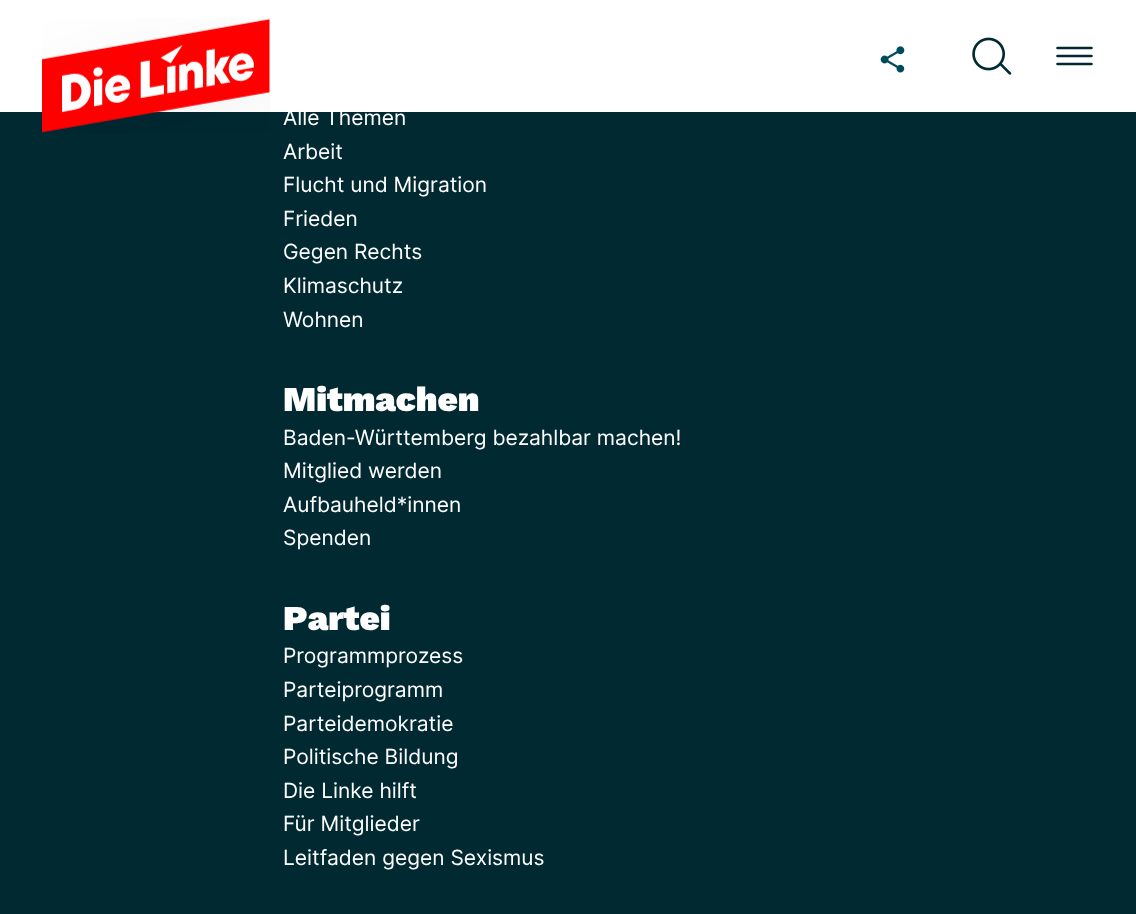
<!DOCTYPE html>
<meta charset="utf-8">
<style>body { margin: 0 } canvas { display: block }</style>
<canvas id="canvas" width="1136" height="914"></canvas>
<img id="img1" src="images/1.png" hidden>
<img id="img2" src="images/2.png" hidden>
<img id="img3" src="images/3.png" hidden>
<script>
window.onload = function () {
    const canvas = document.getElementById('canvas');
    const context = canvas.getContext('2d');
    context.miterLimit = 4;
    context.fontKerning = 'normal';

    context.fillStyle = 'rgb(0, 41, 50)';
    context.fillRect(0, 0, 1136, 914);
    context.fillStyle = 'rgb(255, 255, 255)';
    context.fillRect(0, 0, 1136, 112);
    context.drawImage(document.getElementById('img1'), 42, 18, 228, 115);
    context.drawImage(document.getElementById('img2'), 880, 46, 25, 27);
    context.drawImage(document.getElementById('img3'), 972, 37, 40, 38);
    context.beginPath();
    context.moveTo(1057.5, 48);
    context.lineTo(1091.5, 48);
    context.moveTo(1057.5, 56);
    context.lineTo(1091.5, 56);
    context.moveTo(1057.5, 64);
    context.lineTo(1091.5, 64);
    context.strokeStyle = 'rgb(0, 41, 50)';
    context.lineWidth = 2.6;
    context.lineCap = 'round';
    context.stroke();
    context.font = '21px Inter';
    context.fillText('Alle Themen', 283, 125);
    context.fillText('Arbeit', 283, 159);
    context.fillText('Flucht und Migration', 283, 192);
    context.fillText('Frieden', 283, 226);
    context.fillText('Gegen Rechts', 283, 259);
    context.fillText('Klimaschutz', 283, 293);
    context.fillText('Wohnen', 283, 327);
    context.font = '900 35px Work Sans';
    context.fillText('Mitmachen', 283, 411);
    context.font = '21px Inter';
    context.fillText('Baden-Württemberg bezahlbar machen!', 283, 445);
    context.fillText('Mitglied werden', 283, 478);
    context.fillText('Aufbauheld*innen', 283, 512);
    context.fillText('Spenden', 283, 545);
    context.font = '900 35px Work Sans';
    context.fillText('Partei', 283, 630);
    context.font = '21px Inter';
    context.fillText('Programmprozess', 283, 663);
    context.fillText('Parteiprogramm', 283, 697);
    context.fillText('Parteidemokratie', 283, 731);
    context.fillText('Politische Bildung', 283, 764);
    context.fillText('Die Linke hilft', 283, 798);
    context.fillText('Für Mitglieder', 283, 831);
    context.fillText('Leitfaden gegen Sexismus', 283, 865);
};
</script>
